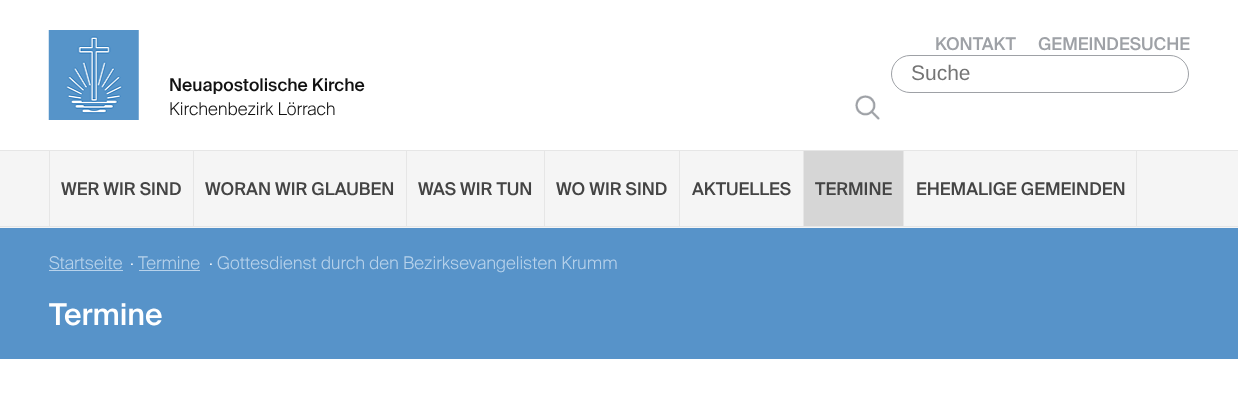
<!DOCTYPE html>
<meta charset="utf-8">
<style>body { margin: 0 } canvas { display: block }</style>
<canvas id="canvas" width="1238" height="397"></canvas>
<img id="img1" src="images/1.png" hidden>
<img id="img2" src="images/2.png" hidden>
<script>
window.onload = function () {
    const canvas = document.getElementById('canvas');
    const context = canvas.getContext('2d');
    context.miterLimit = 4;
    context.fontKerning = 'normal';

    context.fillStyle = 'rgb(255, 255, 255)';
    context.fillRect(0, 0, 1238, 397);
    context.beginPath();
    context.roundRect(891.5, 55.5, 297, 37, 18.5);
    context.strokeStyle = 'rgb(158, 161, 166)';
    context.stroke();
    context.drawImage(document.getElementById('img1'), 855, 95, 25, 25);
    context.drawImage(document.getElementById('img2'), 48, 30, 91, 90);
    context.fillStyle = 'rgb(245, 245, 245)';
    context.fillRect(0, 151, 1238, 77);
    context.fillStyle = 'rgb(230, 230, 230)';
    context.fillRect(0, 150, 1238, 1);
    context.fillRect(0, 226, 1238, 1);
    context.fillRect(49, 151, 1, 75);
    context.fillRect(193, 151, 1, 75);
    context.fillRect(406, 151, 1, 75);
    context.fillRect(544, 151, 1, 75);
    context.fillRect(679, 151, 1, 75);
    context.fillRect(803, 151, 1, 75);
    context.fillStyle = 'rgb(214, 214, 214)';
    context.fillRect(804, 151, 99, 75);
    context.fillStyle = 'rgb(230, 230, 230)';
    context.fillRect(1136, 151, 1, 75);
    context.fillRect(903, 151, 1, 75);
    context.fillStyle = 'rgb(87, 147, 201)';
    context.fillRect(0, 228, 1238, 131);
    context.fillStyle = 'rgb(183, 210, 235)';
    context.fillRect(49, 270, 74, 1);
    context.fillRect(139, 270, 61, 1);
    context.font = '500 17.5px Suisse';
    context.fillStyle = 'rgb(158, 161, 166)';
    context.fillText('KONTAKT', 935, 50);
    context.fillText('GEMEINDESUCHE', 1038, 50);
    context.font = '21px Liberation Sans';
    context.fillStyle = 'rgb(117, 117, 117)';
    context.fillText('Suche', 911, 80);
    context.font = '500 17.5px Suisse';
    context.fillStyle = 'rgb(17, 17, 17)';
    context.fillText('Neuapostolische Kirche', 169, 91);
    context.font = '300 17.5px Suisse';
    context.fillText('Kirchenbezirk Lörrach', 169, 115);
    context.font = '500 17.5px Suisse';
    context.fillStyle = 'rgb(68, 68, 68)';
    context.fillText('WER WIR SIND', 61, 195);
    context.fillText('WORAN WIR GLAUBEN', 205, 195);
    context.fillText('WAS WIR TUN', 418, 195);
    context.fillText('WO WIR SIND', 556, 195);
    context.fillText('AKTUELLES', 692, 195);
    context.fillText('TERMINE', 815, 195);
    context.fillText('EHEMALIGE GEMEINDEN', 916, 195);
    context.font = '300 17.5px Suisse';
    context.fillStyle = 'rgb(183, 210, 235)';
    context.fillText('Startseite', 49, 269);
    context.fillStyle = 'rgb(255, 255, 255)';
    context.fillText('·', 130, 269);
    context.fillStyle = 'rgb(183, 210, 235)';
    context.fillText('Termine', 138, 269);
    context.fillStyle = 'rgb(255, 255, 255)';
    context.fillText('·', 209, 269);
    context.fillStyle = 'rgb(183, 210, 235)';
    context.fillText('Gottesdienst durch den Bezirksevangelisten Krumm', 217, 269);
    context.font = '500 30px Suisse';
    context.fillStyle = 'rgb(255, 255, 255)';
    context.fillText('Termine', 49, 325);
};
</script>
